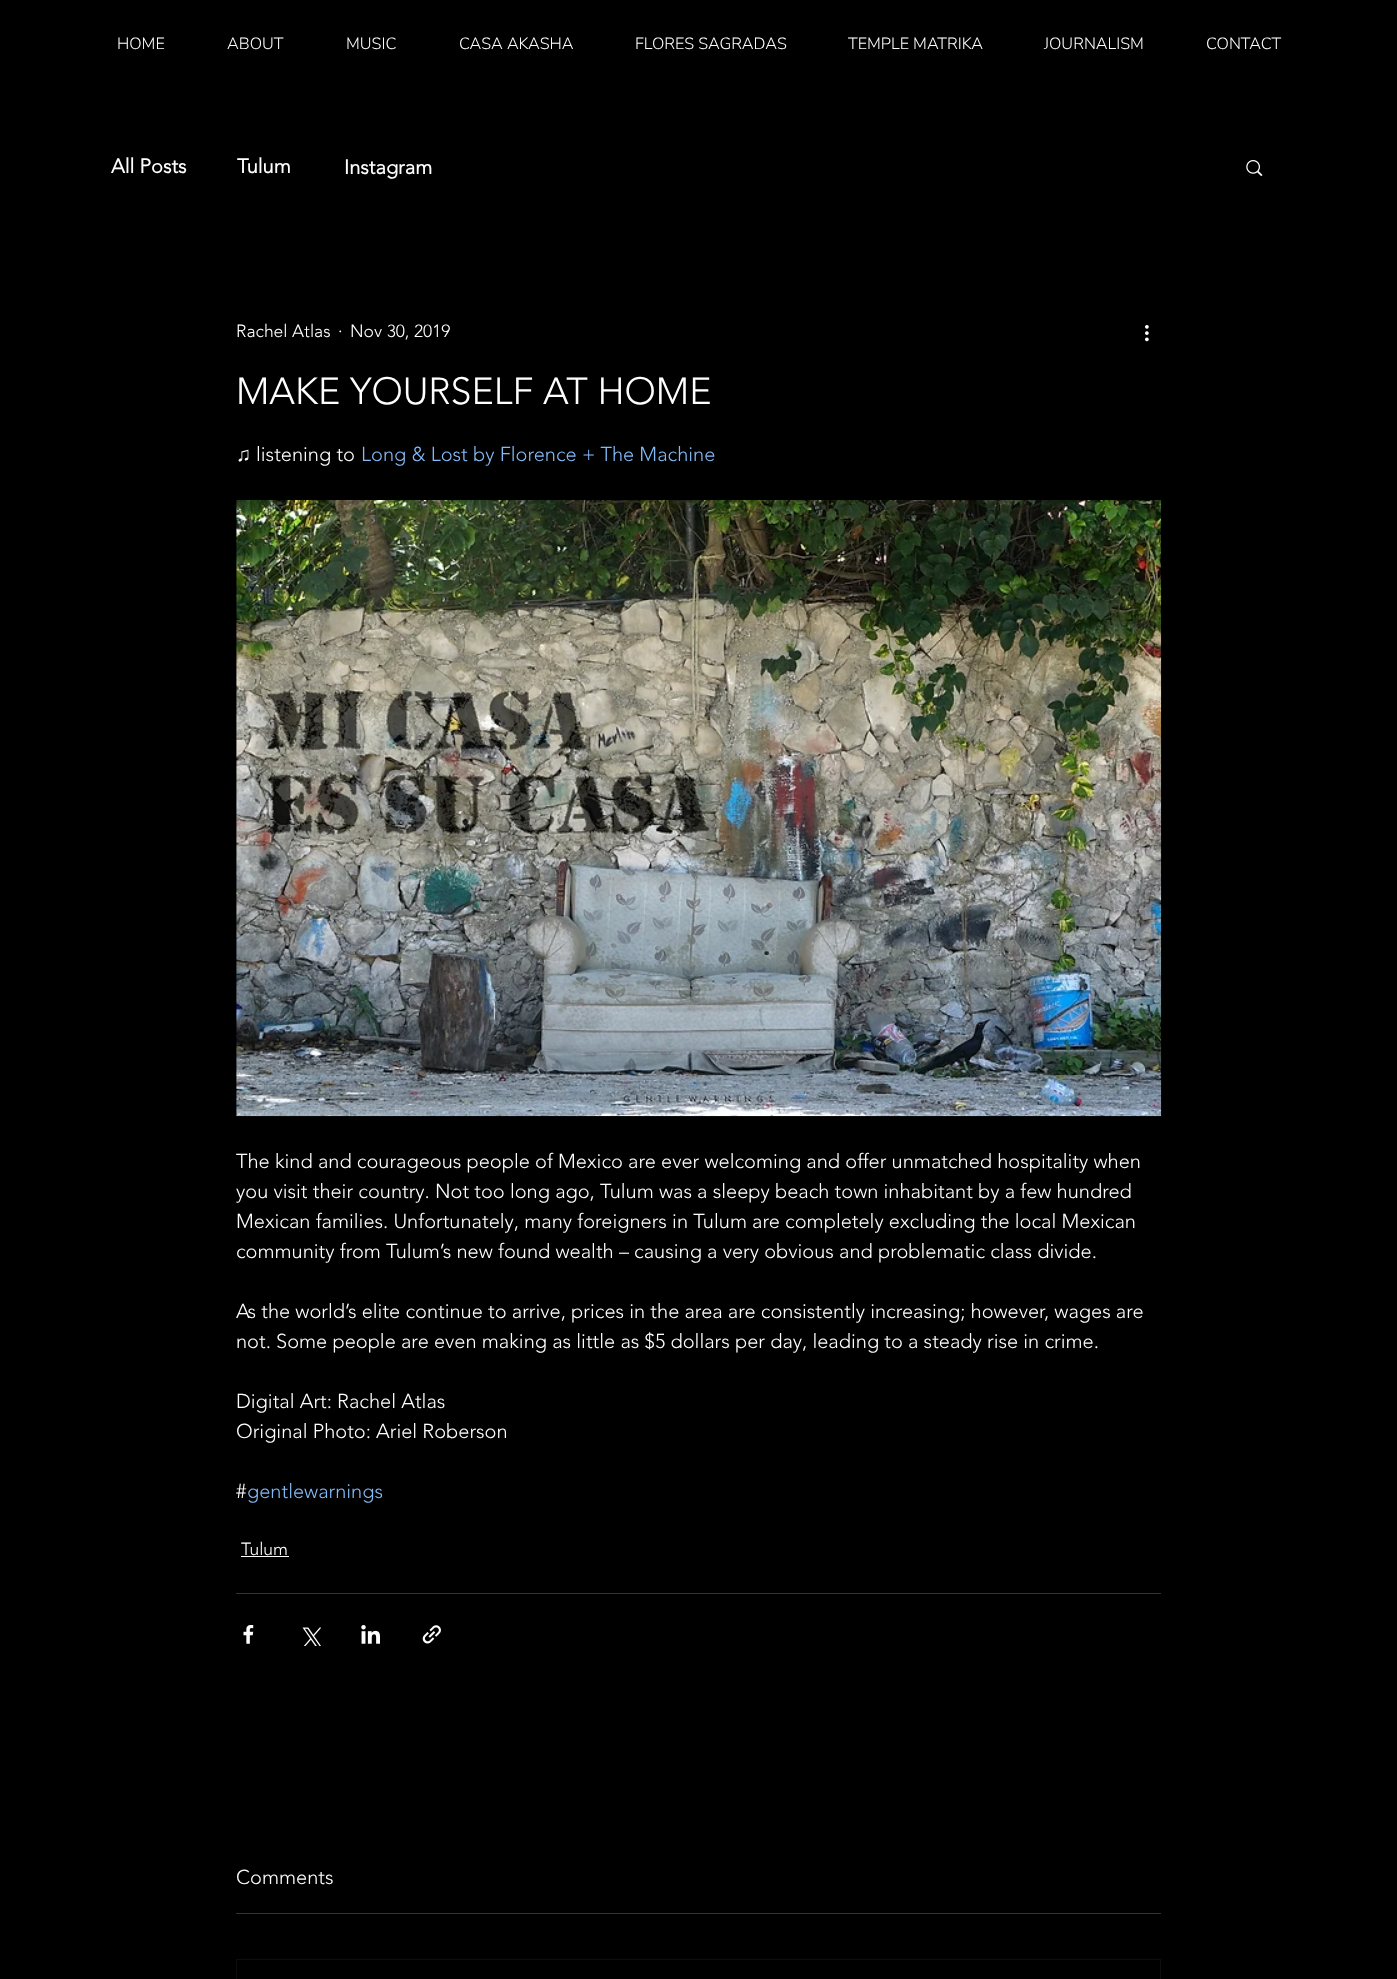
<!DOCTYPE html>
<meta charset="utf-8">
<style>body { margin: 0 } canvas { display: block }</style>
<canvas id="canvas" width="1397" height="1979"></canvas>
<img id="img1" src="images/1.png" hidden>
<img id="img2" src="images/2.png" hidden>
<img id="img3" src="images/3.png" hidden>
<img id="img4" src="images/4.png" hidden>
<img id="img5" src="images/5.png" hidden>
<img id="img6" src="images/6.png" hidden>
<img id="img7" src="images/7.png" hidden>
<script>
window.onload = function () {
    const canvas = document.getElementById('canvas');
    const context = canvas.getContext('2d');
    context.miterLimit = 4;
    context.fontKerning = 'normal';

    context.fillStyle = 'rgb(0, 0, 0)';
    context.fillRect(0, 0, 1397, 1979);
    context.drawImage(document.getElementById('img1'), 1246, 160, 17, 17);
    context.drawImage(document.getElementById('img2'), 1145, 325, 4, 17);
    context.drawImage(document.getElementById('img3'), 236, 500, 926, 617);
    context.fillStyle = 'rgb(255, 255, 255)';
    context.fillRect(241, 1556, 48, 1);
    context.fillStyle = 'rgb(51, 51, 51)';
    context.fillRect(236, 1593, 925, 1);
    context.drawImage(document.getElementById('img4'), 243, 1625, 11, 19);
    context.drawImage(document.getElementById('img5'), 302, 1627, 19, 19);
    context.drawImage(document.getElementById('img6'), 361, 1625, 19, 19);
    context.drawImage(document.getElementById('img7'), 422, 1625, 19, 19);
    context.fillRect(236, 1913, 925, 1);
    context.strokeStyle = 'rgb(14, 14, 14)';
    context.strokeRect(236.5, 1959.5, 924, 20);
    context.font = '300 16.25px Nunito Sans';
    context.fillStyle = 'rgb(255, 255, 255)';
    context.fillText('HOME', 117, 49);
    context.fillText('ABOUT', 227, 49);
    context.fillText('MUSIC', 346, 49);
    context.fillText('CASA AKASHA', 459, 49);
    context.fillText('FLORES SAGRADAS', 635, 49);
    context.fillText('TEMPLE MATRIKA', 848, 49);
    context.fillText('JOURNALISM', 1044, 49);
    context.fillText('CONTACT', 1206, 49);
    context.font = 'bold 20px "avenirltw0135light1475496"';
    context.fillText('All Posts', 111, 173);
    context.fillText('Tulum', 237, 173);
    context.font = '300 17.5px "avenirltw0135light1475496"';
    context.fillText('Rachel Atlas', 236, 337);
    context.fillText('·', 338, 337);
    context.fillText('Nov 30, 2019', 350, 337);
    context.font = '300 37.5px "avenirltw0135light1475496"';
    context.fillText('MAKE YOURSELF AT HOME', 236, 404);
    context.font = 'bold 20px Liberation Sans';
    context.fillText('♫', 236, 461);
    context.font = '300 20px "avenirltw0135light1475496"';
    context.fillText('listening to', 256, 461);
    context.fillStyle = 'rgb(131, 186, 247)';
    context.fillText('Long & Lost by Florence + The Machine', 361, 461);
    context.fillStyle = 'rgb(255, 255, 255)';
    context.fillText('The kind and courageous people of Mexico are ever welcoming and offer unmatched hospitality when', 236, 1168);
    context.fillText('you visit their country. Not too long ago, Tulum was a sleepy beach town inhabitant by a few hundred', 236, 1198);
    context.fillText('Mexican families. Unfortunately, many foreigners in Tulum are completely excluding the local Mexican', 236, 1228);
    context.fillText('community from Tulum’s new found wealth – causing a very obvious and problematic class divide.', 236, 1258);
    context.fillText('As the world’s elite continue to arrive, prices in the area are consistently increasing; however, wages are', 236, 1318);
    context.fillText('not. Some people are even making as little as $5 dollars per day, leading to a steady rise in crime.', 236, 1348);
    context.fillText('Digital Art: Rachel Atlas', 236, 1408);
    context.fillText('Original Photo: Ariel Roberson', 236, 1438);
    context.fillText('#', 236, 1498);
    context.fillStyle = 'rgb(131, 186, 247)';
    context.fillText('gentlewarnings', 247, 1498);
    context.font = '300 17.5px "avenirltw0135light1475496"';
    context.fillStyle = 'rgb(255, 255, 255)';
    context.fillText('Tulum', 241, 1555);
    context.font = '300 20px "avenirltw0135light1475496"';
    context.fillText('Comments', 236, 1884);
    context.font = 'bold 20px "avenirltw0135light1475496"';
    context.fillText('Instagram', 344, 174);
};
</script>
